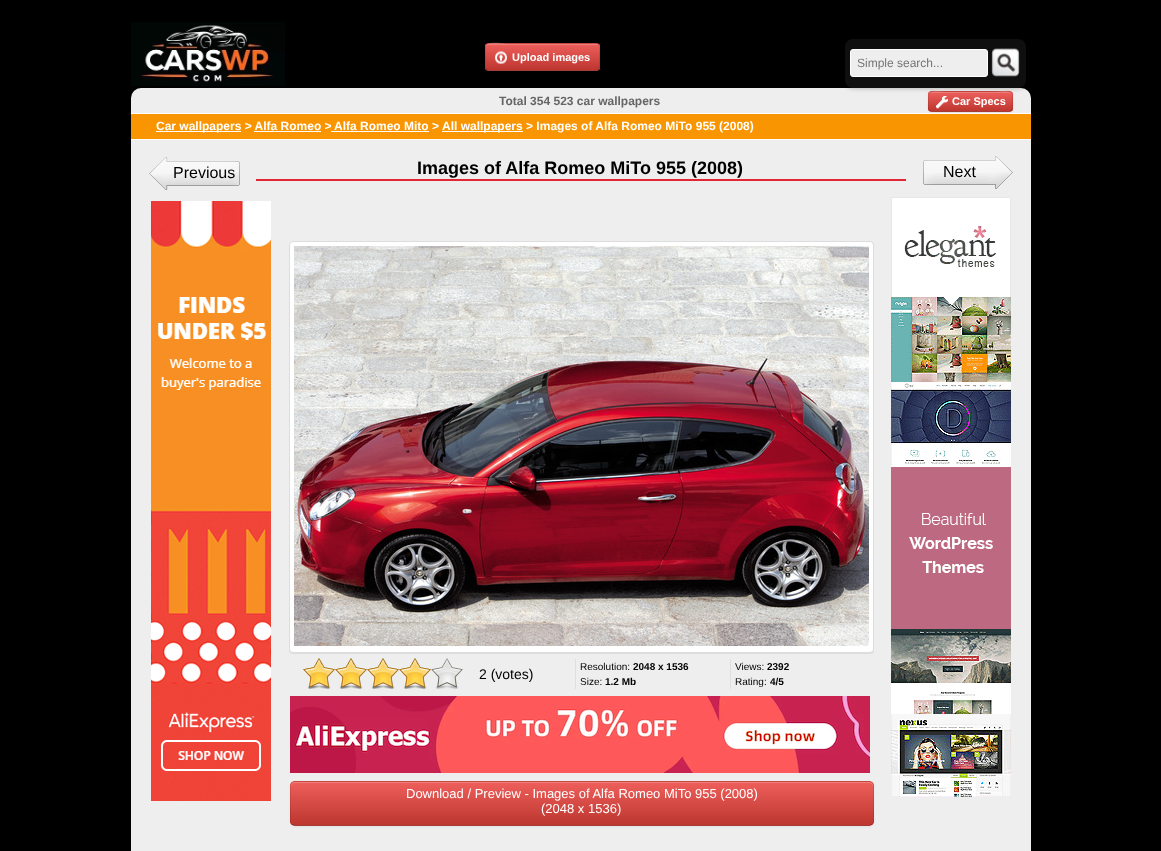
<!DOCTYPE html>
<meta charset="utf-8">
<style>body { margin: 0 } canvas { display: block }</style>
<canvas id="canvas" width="1161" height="851"></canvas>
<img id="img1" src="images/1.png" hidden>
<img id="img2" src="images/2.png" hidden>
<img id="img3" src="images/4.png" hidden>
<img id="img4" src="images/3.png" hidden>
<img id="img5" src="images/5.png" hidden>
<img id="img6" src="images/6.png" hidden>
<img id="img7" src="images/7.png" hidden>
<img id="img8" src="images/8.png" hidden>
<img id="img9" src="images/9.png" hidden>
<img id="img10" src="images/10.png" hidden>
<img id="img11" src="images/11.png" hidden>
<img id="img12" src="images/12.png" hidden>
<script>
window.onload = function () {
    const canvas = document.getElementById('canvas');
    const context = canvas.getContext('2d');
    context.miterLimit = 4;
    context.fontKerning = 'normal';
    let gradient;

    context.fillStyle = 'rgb(0, 0, 0)';
    context.fillRect(0, 0, 1161, 851);
    context.drawImage(document.getElementById('img1'), 131, 22, 154, 64);
    context.fillStyle = 'rgb(218, 79, 73)';
    context.beginPath();
    context.roundRect(485, 43, 115, 28, 4);
    context.fill();
    context.save();
    context.beginPath();
    context.roundRect(485, 43, 115, 28, 4);
    context.clip();
    gradient = context.createLinearGradient(543, 44, 543, 70);
    gradient.addColorStop(0, 'rgb(238, 95, 91)');
    gradient.addColorStop(1, 'rgb(189, 54, 47)');
    context.fillStyle = gradient;
    context.fillRect(485, 44, 115, 26);
    context.restore();
    context.fillStyle = 'rgba(255, 255, 255, 0.2)';
    context.beginPath();
    context.moveTo(489, 45);
    context.lineTo(596, 45);
    context.bezierCurveTo(598, 45, 599, 46, 599, 48);
    context.bezierCurveTo(599, 46, 598, 44, 596, 44);
    context.lineTo(507, 44);
    context.bezierCurveTo(505, 44, 486, 39, 486, 48);
    context.bezierCurveTo(486, 46, 487, 45, 489, 45);
    context.closePath();
    context.fill();
    context.beginPath();
    context.moveTo(598.5, 69.5);
    context.lineTo(596.5, 70.5);
    context.lineTo(507, 70.5);
    context.lineTo(489, 70.5);
    context.lineTo(486.5, 69.5);
    context.strokeStyle = 'rgba(0, 0, 0, 0.25)';
    context.stroke();
    context.beginPath();
    context.moveTo(486.5, 69.5);
    context.bezierCurveTo(484.5, 67.5, 485.5, 63, 485.5, 60.5);
    context.bezierCurveTo(485.5, 39, 483, 43.5, 507, 43.5);
    context.lineTo(578, 43.5);
    context.bezierCurveTo(602, 43.5, 599.5, 39, 599.5, 60.5);
    context.bezierCurveTo(599.5, 63, 600.5, 67.5, 598.5, 69.5);
    context.strokeStyle = 'rgba(0, 0, 0, 0.1)';
    context.stroke();
    context.drawImage(document.getElementById('img2'), 495, 51, 12, 13);
    context.fillStyle = 'rgb(238, 238, 238)';
    context.beginPath();
    context.roundRect(131, 88, 900, 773, 10);
    context.fill();
    context.fillStyle = 'rgb(249, 149, 0)';
    context.fillRect(131, 114, 900, 25);
    context.fillStyle = 'rgb(255, 255, 255)';
    context.fillRect(131, 113, 900, 1);
    context.fillStyle = 'rgba(0, 0, 0, 0.05)';
    context.filter = 'blur(1px)';
    context.beginPath();
    context.roundRect(928, 92, 85, 21, 4);
    context.fill();
    context.filter = 'none';
    context.fillStyle = 'rgb(218, 79, 73)';
    context.beginPath();
    context.roundRect(928, 91, 85, 21, 4);
    context.fill();
    context.save();
    context.beginPath();
    context.roundRect(928, 91, 85, 21, 4);
    context.clip();
    gradient = context.createLinearGradient(971, 92, 971, 111);
    gradient.addColorStop(0, 'rgb(238, 95, 91)');
    gradient.addColorStop(1, 'rgb(189, 54, 47)');
    context.fillStyle = gradient;
    context.fillRect(928, 92, 85, 19);
    context.restore();
    context.fillStyle = 'rgba(255, 255, 255, 0.2)';
    context.beginPath();
    context.moveTo(932, 93);
    context.lineTo(1009, 93);
    context.bezierCurveTo(1011, 93, 1012, 94, 1012, 96);
    context.bezierCurveTo(1012, 89, 1000, 92, 996, 92);
    context.lineTo(945, 92);
    context.bezierCurveTo(941, 92, 929, 89, 929, 96);
    context.bezierCurveTo(929, 94, 930, 93, 932, 93);
    context.closePath();
    context.fill();
    context.beginPath();
    context.moveTo(1011.5, 110.5);
    context.lineTo(1009.5, 111.5);
    context.lineTo(931.5, 111.5);
    context.lineTo(929.5, 110.5);
    context.strokeStyle = 'rgba(0, 0, 0, 0.25)';
    context.stroke();
    context.beginPath();
    context.moveTo(929.5, 110.5);
    context.bezierCurveTo(927.5, 108.5, 928.5, 102, 928.5, 99.5);
    context.bezierCurveTo(928.5, 88, 931.5, 91.5, 945, 91.5);
    context.lineTo(996, 91.5);
    context.bezierCurveTo(1009.5, 91.5, 1012.5, 88, 1012.5, 99.5);
    context.bezierCurveTo(1012.5, 102, 1013.5, 108.5, 1011.5, 110.5);
    context.strokeStyle = 'rgba(0, 0, 0, 0.1)';
    context.stroke();
    context.drawImage(document.getElementById('img3'), 936, 96, 12, 13);
    context.fillStyle = 'rgba(0, 0, 0, 0.3)';
    context.filter = 'blur(2.5px)';
    context.beginPath();
    context.roundRect(845, 39, 181, 49, 8);
    context.fill();
    context.filter = 'none';
    context.fillStyle = 'rgb(15, 15, 15)';
    context.beginPath();
    context.roundRect(845, 39, 181, 49, 8);
    context.fill();
    context.fillStyle = 'rgb(238, 238, 238)';
    context.beginPath();
    context.roundRect(850.5, 49.5, 137, 27, 2.5);
    context.fill();
    context.strokeStyle = 'rgb(255, 255, 255)';
    context.stroke();
    context.drawImage(document.getElementById('img4'), 991, 48, 29, 29);
    context.fillStyle = 'rgb(255, 255, 255)';
    context.fillRect(131, 139, 900, 1);
    context.fillRect(156, 131, 85, 1);
    context.fillRect(331, 131, 98, 1);
    context.fillRect(442, 131, 81, 1);
    context.fillRect(254, 131, 67, 1);
    context.drawImage(document.getElementById('img5'), 149, 157, 91, 33);
    context.fillStyle = 'rgb(227, 38, 54)';
    context.fillRect(256, 179, 650, 2);
    context.drawImage(document.getElementById('img6'), 923, 156, 90, 33);
    context.drawImage(document.getElementById('img7'), 151, 201, 120, 600);
    context.fillStyle = 'rgba(0, 0, 0, 0.07)';
    context.filter = 'blur(0.5px)';
    context.beginPath();
    context.roundRect(289, 242, 585, 412, 4);
    context.fill();
    context.filter = 'none';
    context.fillStyle = 'rgb(255, 255, 255)';
    context.beginPath();
    context.roundRect(289.5, 241.5, 584, 411, 3.5);
    context.fill();
    context.strokeStyle = 'rgb(221, 221, 221)';
    context.stroke();
    context.drawImage(document.getElementById('img8'), 294, 246, 575, 400);
    context.drawImage(document.getElementById('img9'), 303, 658, 160, 31);
    context.drawImage(document.getElementById('img10'), 303, 658, 128, 31);
    context.fillStyle = 'rgb(223, 223, 223)';
    context.fillRect(575, 659, 1, 30);
    context.fillRect(730, 659, 1, 30);
    context.drawImage(document.getElementById('img11'), 290, 696, 580, 77);
    context.fillStyle = 'rgba(0, 0, 0, 0.05)';
    context.filter = 'blur(1px)';
    context.beginPath();
    context.roundRect(290, 782, 584, 45, 5);
    context.fill();
    context.filter = 'none';
    context.fillStyle = 'rgb(218, 79, 73)';
    context.beginPath();
    context.roundRect(290, 781, 584, 45, 5);
    context.fill();
    context.save();
    context.beginPath();
    context.roundRect(290, 781, 584, 45, 5);
    context.clip();
    gradient = context.createLinearGradient(582, 782, 582, 825);
    gradient.addColorStop(0, 'rgb(238, 95, 91)');
    gradient.addColorStop(1, 'rgb(189, 54, 47)');
    context.fillStyle = gradient;
    context.fillRect(290, 782, 584, 43);
    context.restore();
    context.fillStyle = 'rgb(241, 127, 123)';
    context.beginPath();
    context.moveTo(295, 783);
    context.lineTo(869, 783);
    context.bezierCurveTo(871, 783, 873, 785, 873, 787);
    context.lineTo(873, 786);
    context.bezierCurveTo(873, 784, 871, 782, 869, 782);
    context.lineTo(295, 782);
    context.bezierCurveTo(293, 782, 291, 784, 291, 786);
    context.lineTo(291, 787);
    context.bezierCurveTo(291, 785, 293, 783, 295, 783);
    context.closePath();
    context.fill();
    context.beginPath();
    context.moveTo(872, 824);
    context.bezierCurveTo(871.5, 825, 870, 825.5, 869, 825.5);
    context.lineTo(295, 825.5);
    context.bezierCurveTo(294, 825.5, 292.5, 825, 292, 824);
    context.strokeStyle = 'rgba(0, 0, 0, 0.25)';
    context.stroke();
    context.beginPath();
    context.moveTo(292, 824);
    context.bezierCurveTo(291, 823.5, 290.5, 822, 290.5, 821);
    context.lineTo(290.5, 786);
    context.bezierCurveTo(290.5, 785, 291, 783.5, 292, 783);
    context.bezierCurveTo(292.5, 782, 294, 781.5, 295, 781.5);
    context.lineTo(869, 781.5);
    context.bezierCurveTo(870, 781.5, 871.5, 782, 872, 783);
    context.bezierCurveTo(873, 783.5, 873.5, 785, 873.5, 786);
    context.lineTo(873.5, 821);
    context.bezierCurveTo(873.5, 822, 873, 823.5, 872, 824);
    context.strokeStyle = 'rgba(0, 0, 0, 0.1)';
    context.stroke();
    context.drawImage(document.getElementById('img12'), 891, 197, 120, 600);
    context.font = 'bold 11px Liberation Sans';
    context.fillStyle = 'rgb(255, 255, 255)';
    context.fillText('Upload images', 512, 61);
    context.font = '12px Liberation Sans';
    context.fillStyle = 'rgb(117, 117, 117)';
    context.fillText('Simple search...', 857, 67);
    context.font = 'bold 12px Liberation Sans';
    context.fillStyle = 'rgb(102, 102, 102)';
    context.fillText('Total 354 523 car wallpapers', 499, 105);
    context.font = 'bold 11px Liberation Sans';
    context.fillStyle = 'rgb(255, 255, 255)';
    context.fillText('Car Specs', 952, 105);
    context.font = 'bold 12px Liberation Sans';
    context.fillText('Car wallpapers > Alfa Romeo >', 156, 130);
    context.fillText('Alfa Romeo Mito >', 334, 130);
    context.fillText('All wallpapers > Images of Alfa Romeo MiTo 955 (2008)', 442, 130);
    context.font = '16px Liberation Sans';
    context.fillStyle = 'rgb(0, 0, 0)';
    context.fillText('Previous', 173, 178);
    context.font = 'bold 18px Liberation Sans';
    context.fillText('Images of Alfa Romeo MiTo 955 (2008)', 417, 174);
    context.font = '16px Liberation Sans';
    context.fillText('Next', 943, 177);
    context.font = '14px Liberation Sans';
    context.fillText('2 (votes)', 479, 679);
    context.font = '10px Liberation Sans';
    context.fillText('Resolution:', 580, 670);
    context.font = 'bold 10px Liberation Sans';
    context.fillText('2048 x 1536', 633, 670);
    context.font = '10px Liberation Sans';
    context.fillText('Size:', 580, 685);
    context.font = 'bold 10px Liberation Sans';
    context.fillText('1.2 Mb', 605, 685);
    context.font = '10px Liberation Sans';
    context.fillText('Views:', 735, 670);
    context.font = 'bold 10px Liberation Sans';
    context.fillText('2392', 767, 670);
    context.font = '10px Liberation Sans';
    context.fillText('Rating:', 735, 685);
    context.font = 'bold 10px Liberation Sans';
    context.fillText('4/5', 770, 685);
    context.font = '13px Liberation Sans';
    context.fillStyle = 'rgb(255, 255, 255)';
    context.fillText('Download / Preview - Images of Alfa Romeo MiTo 955 (2008)', 406, 798);
    context.fillText('(2048 x 1536)', 541, 813);
};
</script>
